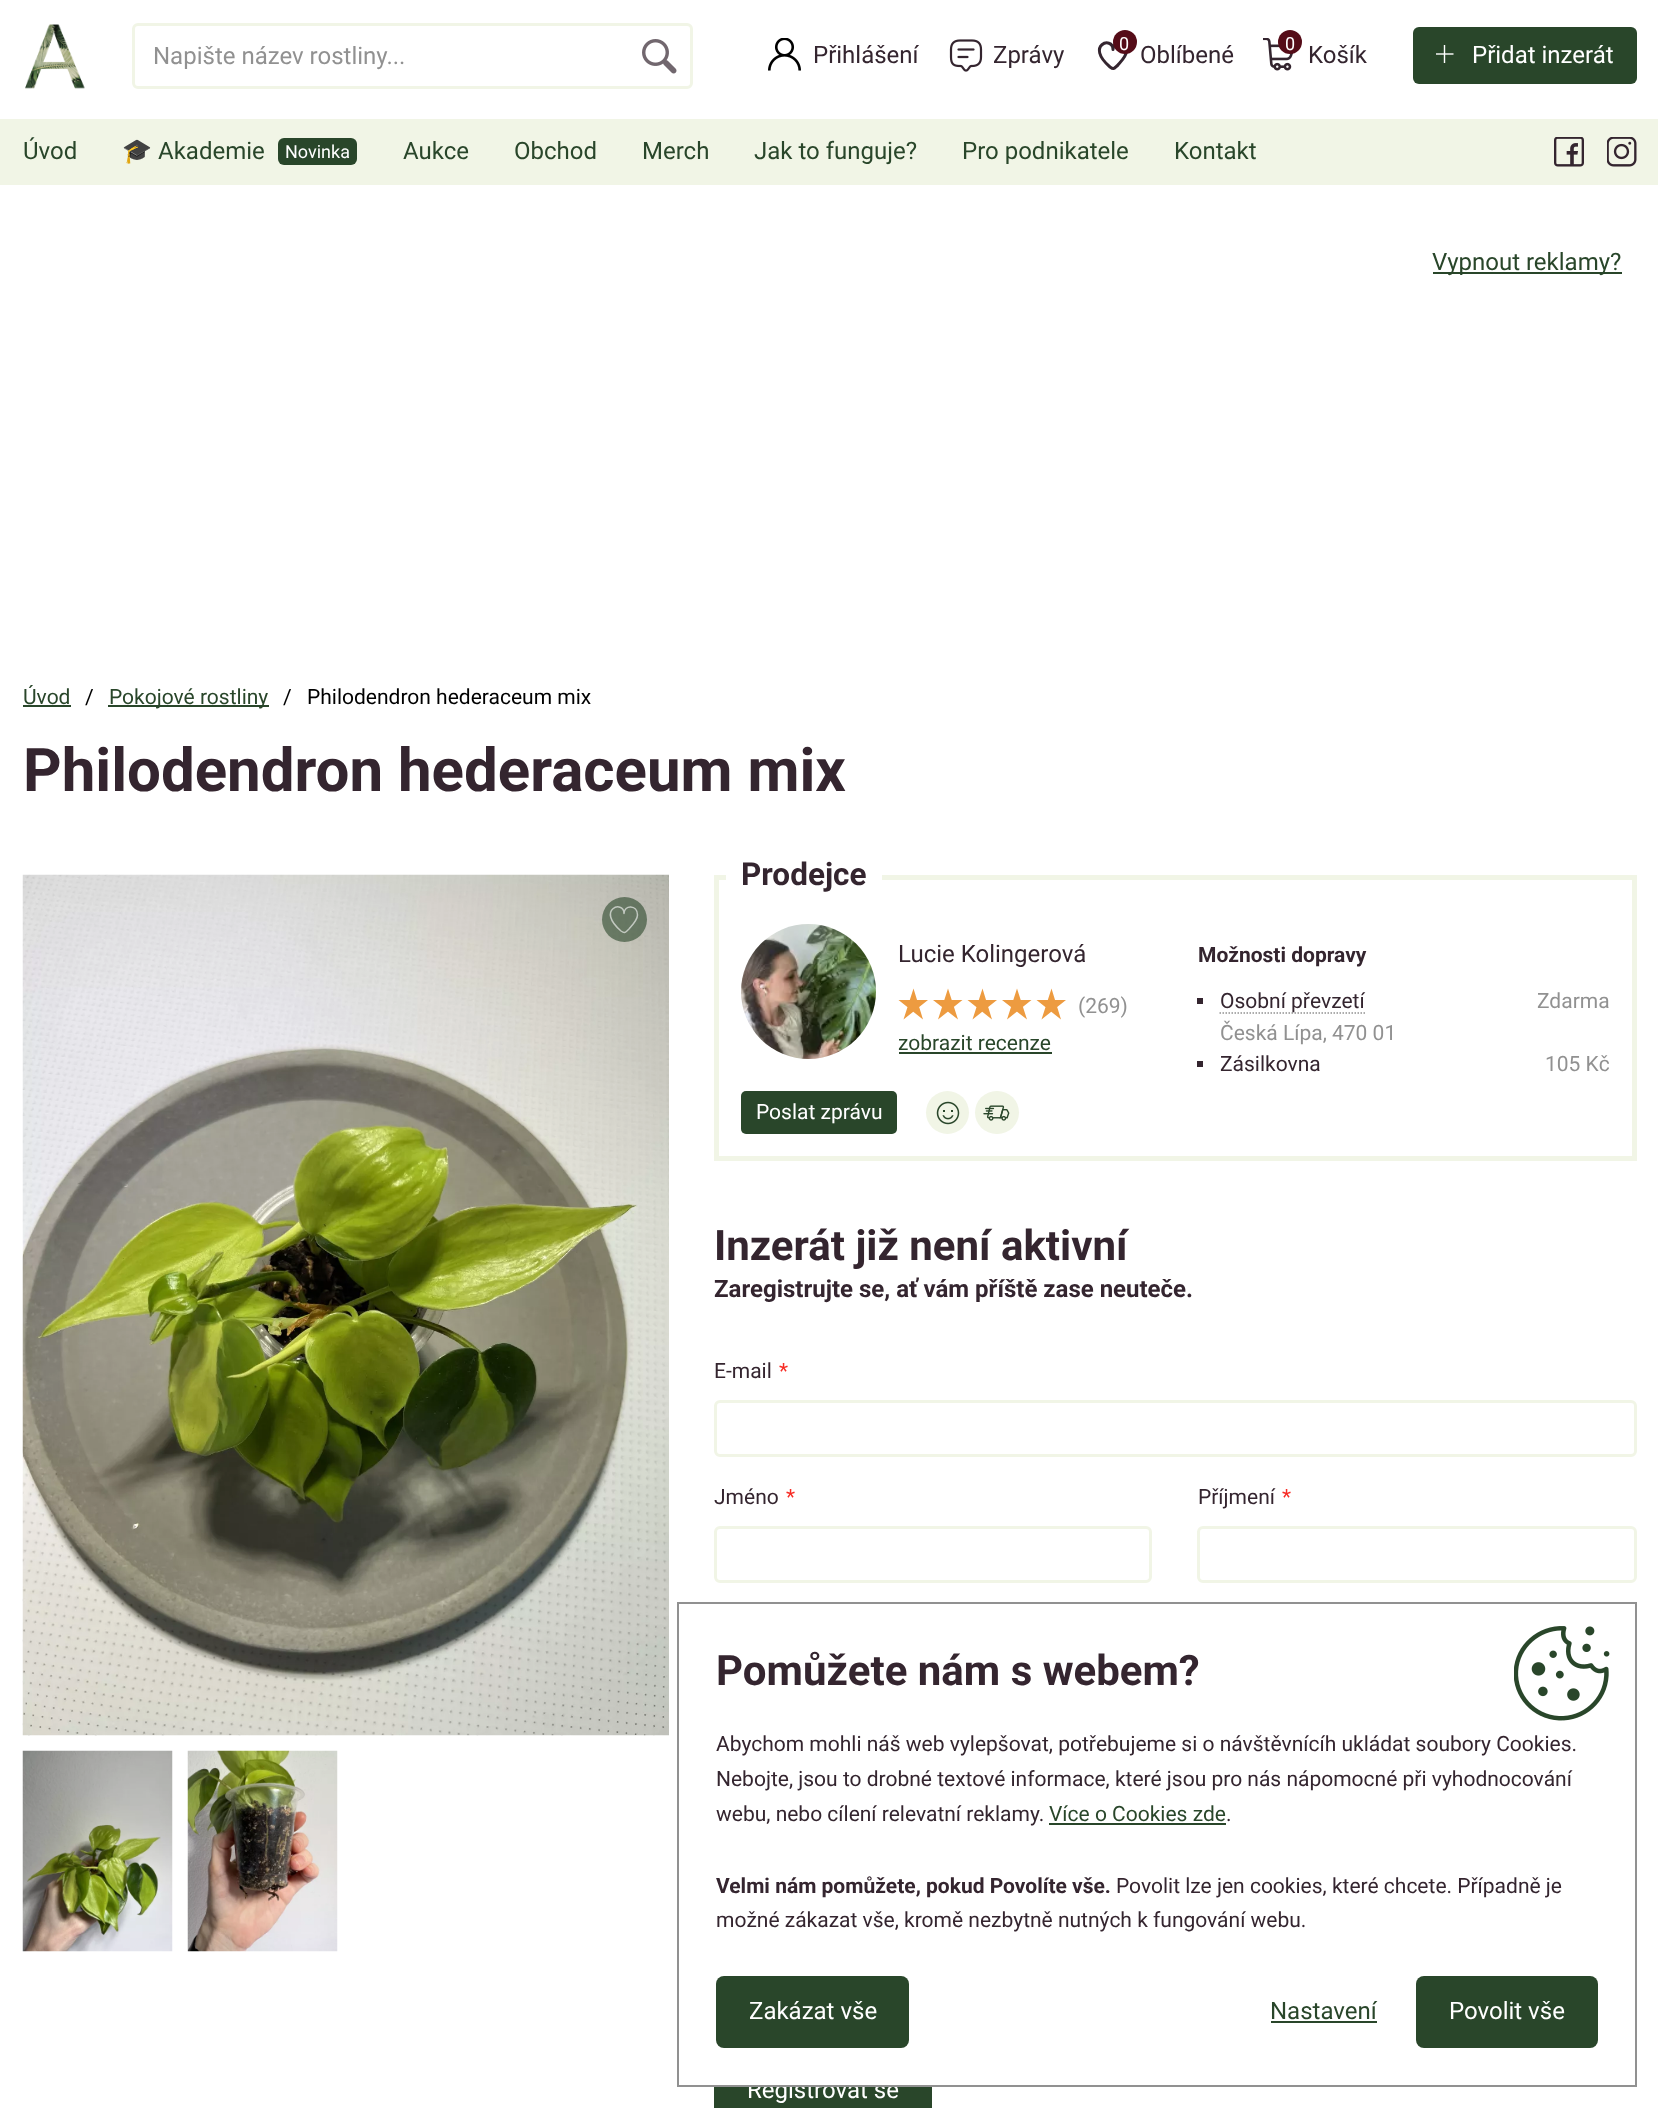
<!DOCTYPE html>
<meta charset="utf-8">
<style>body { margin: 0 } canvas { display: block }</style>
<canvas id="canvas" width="1658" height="2108"></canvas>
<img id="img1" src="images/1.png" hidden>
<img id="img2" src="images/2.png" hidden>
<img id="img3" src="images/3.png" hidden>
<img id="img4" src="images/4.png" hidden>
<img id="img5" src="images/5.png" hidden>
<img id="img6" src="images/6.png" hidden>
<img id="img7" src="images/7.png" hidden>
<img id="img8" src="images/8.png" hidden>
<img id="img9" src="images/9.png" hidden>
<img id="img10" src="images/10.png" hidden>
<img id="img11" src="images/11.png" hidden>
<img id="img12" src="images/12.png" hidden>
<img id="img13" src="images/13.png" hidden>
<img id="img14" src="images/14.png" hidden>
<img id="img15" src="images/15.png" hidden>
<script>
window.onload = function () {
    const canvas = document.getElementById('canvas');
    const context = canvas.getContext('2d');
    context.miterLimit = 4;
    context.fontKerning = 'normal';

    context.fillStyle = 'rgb(255, 255, 255)';
    context.fillRect(0, 0, 1658, 2108);
    context.drawImage(document.getElementById('img1'), 25, 24, 60, 65);
    context.beginPath();
    context.roundRect(133.5, 24.5, 558, 63, 4.5);
    context.strokeStyle = 'rgb(241, 245, 230)';
    context.lineWidth = 3;
    context.stroke();
    context.drawImage(document.getElementById('img2'), 642, 39, 35, 35);
    context.drawImage(document.getElementById('img3'), 768, 38, 33, 33);
    context.drawImage(document.getElementById('img4'), 949, 39, 34, 33);
    context.beginPath();
    context.moveTo(1126.5, 51);
    context.bezierCurveTo(1126.5, 56, 1121, 61.5, 1118, 65);
    context.bezierCurveTo(1114, 68.5, 1114, 70, 1110, 67);
    context.bezierCurveTo(1084.5, 45, 1113, 35.5, 1113, 49.5);
    context.bezierCurveTo(1113, 40.5, 1126.5, 40.5, 1126.5, 51);
    context.closePath();
    context.strokeStyle = 'rgb(52, 37, 47)';
    context.lineCap = 'round';
    context.lineJoin = 'round';
    context.stroke();
    context.fillStyle = 'rgb(85, 12, 24)';
    context.beginPath();
    context.arc(1125, 42, 12, 0, 2 * Math.PI);
    context.fill();
    context.drawImage(document.getElementById('img5'), 1263, 38, 31, 33);
    context.beginPath();
    context.arc(1290, 42, 12, 0, 2 * Math.PI);
    context.fill();
    context.fillStyle = 'rgb(41, 70, 42)';
    context.beginPath();
    context.roundRect(1413, 27, 224, 57, 6);
    context.fill();
    context.drawImage(document.getElementById('img6'), 1436, 45, 18, 18);
    context.fillStyle = 'rgb(241, 245, 230)';
    context.fillRect(0, 119, 1658, 66);
    context.fillStyle = 'rgb(41, 70, 42)';
    context.beginPath();
    context.roundRect(278, 138, 79, 27, 6);
    context.fill();
    context.drawImage(document.getElementById('img7'), 1554, 137, 30, 30);
    context.drawImage(document.getElementById('img8'), 1607, 137, 30, 30);
    context.fillRect(1433, 272, 189, 2);
    context.fillRect(23, 705, 48, 2);
    context.fillRect(108, 705, 161, 2);
    context.drawImage(document.getElementById('img9'), 22, 874, 647, 862);
    context.fillStyle = 'rgba(41, 70, 42, 0.6)';
    context.beginPath();
    context.arc(624.5, 919.5, 22.5, 0, 2 * Math.PI);
    context.fill();
    context.beginPath();
    context.moveTo(637.5, 915);
    context.bezierCurveTo(637.5, 920, 632, 925.5, 629, 929);
    context.bezierCurveTo(625, 932.5, 625, 934, 621, 931);
    context.bezierCurveTo(595.5, 909, 624, 899.5, 624, 913.5);
    context.bezierCurveTo(624, 904.5, 637.5, 904.5, 637.5, 915);
    context.closePath();
    context.strokeStyle = 'rgba(255, 255, 255, 0.6)';
    context.lineWidth = 1.5;
    context.stroke();
    context.drawImage(document.getElementById('img10'), 22, 1750, 151, 202);
    context.drawImage(document.getElementById('img11'), 187, 1750, 151, 202);
    context.strokeStyle = 'rgb(241, 245, 230)';
    context.lineWidth = 5;
    context.lineJoin = 'miter';
    context.strokeRect(716.5, 877.5, 918, 281);
    context.fillStyle = 'rgb(255, 255, 255)';
    context.fillRect(726, 875, 156, 5);
    context.drawImage(document.getElementById('img12'), 741, 924, 135, 135);
    context.fillStyle = 'rgb(237, 155, 64)';
    context.beginPath();
    context.moveTo(913.5, 988.5);
    context.lineTo(903.5, 1019.5);
    context.lineTo(928, 1000);
    context.lineTo(898.5, 1000);
    context.lineTo(923, 1019.5);
    context.closePath();
    context.fill();
    context.beginPath();
    context.moveTo(948, 988.5);
    context.lineTo(938, 1019.5);
    context.lineTo(962.5, 1000);
    context.lineTo(933, 1000);
    context.lineTo(958, 1019.5);
    context.closePath();
    context.fill();
    context.beginPath();
    context.moveTo(982.5, 988.5);
    context.lineTo(972.5, 1019.5);
    context.lineTo(997, 1000);
    context.lineTo(967.5, 1000);
    context.lineTo(992, 1019.5);
    context.closePath();
    context.fill();
    context.beginPath();
    context.moveTo(1017, 988.5);
    context.lineTo(1007, 1019.5);
    context.lineTo(1031.5, 1000);
    context.lineTo(1002, 1000);
    context.lineTo(1027, 1019.5);
    context.closePath();
    context.fill();
    context.beginPath();
    context.moveTo(1051.5, 988.5);
    context.lineTo(1041.5, 1019.5);
    context.lineTo(1066, 1000);
    context.lineTo(1036.5, 1000);
    context.lineTo(1061, 1019.5);
    context.closePath();
    context.fill();
    context.fillStyle = 'rgb(41, 70, 42)';
    context.fillRect(899, 1052, 153, 2);
    context.beginPath();
    context.roundRect(741, 1091, 156, 43, 5);
    context.fill();
    context.fillStyle = 'rgb(241, 245, 230)';
    context.beginPath();
    context.arc(947.5, 1112.5, 21.5, 0, 2 * Math.PI);
    context.fill();
    context.drawImage(document.getElementById('img13'), 936, 1101, 24, 24);
    context.beginPath();
    context.roundRect(975, 1091, 44, 43, 21.5);
    context.fill();
    context.drawImage(document.getElementById('img14'), 983, 1105, 27, 16);
    context.fillStyle = 'rgb(52, 37, 47)';
    context.fillRect(1197, 998, 6, 6);
    context.beginPath();
    context.moveTo(1219.5, 1013);
    context.lineTo(1365, 1013);
    context.strokeStyle = 'rgb(145, 145, 145)';
    context.lineWidth = 1.5;
    context.lineCap = 'butt';
    context.setLineDash([1.5, 1.5]);
    context.stroke();
    context.fillRect(1197, 1061, 6, 6);
    context.beginPath();
    context.roundRect(715.5, 1401.5, 920, 54, 4.5);
    context.strokeStyle = 'rgb(241, 245, 230)';
    context.lineWidth = 3;
    context.setLineDash([]);
    context.stroke();
    context.beginPath();
    context.roundRect(715.5, 1527.5, 435, 54, 4.5);
    context.stroke();
    context.beginPath();
    context.roundRect(1198.5, 1527.5, 437, 54, 4.5);
    context.stroke();
    context.fillStyle = 'rgb(41, 70, 42)';
    context.fillRect(714, 2087, 218, 21);
    context.drawImage(document.getElementById('img15'), 1514, 1626, 96, 95);
    context.font = '24px Roboto';
    context.fillStyle = 'rgb(145, 145, 145)';
    context.fillText('Napište název rostliny...', 153, 64);
    context.fillStyle = 'rgb(52, 37, 47)';
    context.fillText('Přihlášení', 813, 63);
    context.fillText('Zprávy', 993, 63);
    context.font = '18px Roboto';
    context.fillStyle = 'rgb(255, 255, 255)';
    context.fillText('0', 1119, 50);
    context.font = '24px Roboto';
    context.fillStyle = 'rgb(52, 37, 47)';
    context.fillText('Oblíbené', 1140, 63);
    context.font = '18px Roboto';
    context.fillStyle = 'rgb(255, 255, 255)';
    context.fillText('0', 1285, 50);
    context.font = '24px Roboto';
    context.fillStyle = 'rgb(52, 37, 47)';
    context.fillText('Košík', 1308, 63);
    context.fillStyle = 'rgb(255, 255, 255)';
    context.fillText('Přidat inzerát', 1472, 63);
    context.fillStyle = 'rgb(41, 70, 42)';
    context.fillText('Úvod', 23, 159);
    context.font = '24px Noto Color Emoji';
    context.fillText('🎓', 122, 159);
    context.font = '24px Roboto';
    context.fillText('Akademie', 158, 159);
    context.font = '18px Roboto';
    context.fillStyle = 'rgb(255, 255, 255)';
    context.fillText('Novinka', 285, 158);
    context.font = '24px Roboto';
    context.fillStyle = 'rgb(41, 70, 42)';
    context.fillText('Aukce', 403, 159);
    context.fillText('Obchod', 514, 159);
    context.fillText('Merch', 642, 159);
    context.fillText('Jak to funguje?', 754, 159);
    context.fillText('Pro podnikatele', 962, 159);
    context.fillText('Kontakt', 1174, 159);
    context.fillText('Vypnout reklamy?', 1432, 270);
    context.font = '21px Roboto';
    context.fillText('Úvod', 23, 704);
    context.fillStyle = 'rgb(0, 0, 0)';
    context.fillText('/', 85, 704);
    context.fillStyle = 'rgb(41, 70, 42)';
    context.fillText('Pokojové rostliny', 109, 704);
    context.fillStyle = 'rgb(0, 0, 0)';
    context.fillText('/', 283, 704);
    context.fillText('Philodendron hederaceum mix', 307, 704);
    context.font = 'bold 60px Roboto';
    context.fillStyle = 'rgb(52, 37, 47)';
    context.fillText('Philodendron hederaceum mix', 23, 791);
    context.font = 'bold 31.5px Roboto';
    context.fillText('Prodejce', 741, 885);
    context.font = '24px Roboto';
    context.fillText('Lucie Kolingerová', 898, 962);
    context.font = '21px Roboto';
    context.fillStyle = 'rgb(145, 145, 145)';
    context.fillText('(269)', 1078, 1013);
    context.fillStyle = 'rgb(41, 70, 42)';
    context.fillText('zobrazit recenze', 898, 1050);
    context.fillStyle = 'rgb(255, 255, 255)';
    context.fillText('Poslat zprávu', 756, 1119);
    context.font = 'bold 21px Roboto';
    context.fillStyle = 'rgb(52, 37, 47)';
    context.fillText('Možnosti dopravy', 1198, 962);
    context.font = '21px Roboto';
    context.fillText('Osobní převzetí', 1220, 1008);
    context.fillStyle = 'rgb(145, 145, 145)';
    context.fillText('Česká Lípa, 470 01', 1220, 1040);
    context.fillText('Zdarma', 1537, 1008);
    context.fillStyle = 'rgb(52, 37, 47)';
    context.fillText('Zásilkovna', 1220, 1071);
    context.fillStyle = 'rgb(145, 145, 145)';
    context.fillText('105 Kč', 1545, 1071);
    context.font = 'bold 42px Roboto';
    context.fillStyle = 'rgb(52, 37, 47)';
    context.fillText('Inzerát již není aktivní', 714, 1260);
    context.font = 'bold 24px Roboto';
    context.fillText('Zaregistrujte se, ať vám příště zase neuteče.', 714, 1297);
    context.font = '21px Roboto';
    context.fillText('E-mail', 714, 1378);
    context.fillStyle = 'rgb(247, 44, 37)';
    context.fillText('*', 779, 1378);
    context.fillStyle = 'rgb(52, 37, 47)';
    context.fillText('Jméno', 714, 1504);
    context.fillStyle = 'rgb(247, 44, 37)';
    context.fillText('*', 786, 1504);
    context.fillStyle = 'rgb(52, 37, 47)';
    context.fillText('Příjmení', 1198, 1504);
    context.fillStyle = 'rgb(247, 44, 37)';
    context.fillText('*', 1282, 1504);
    context.font = '24px Roboto';
    context.fillStyle = 'rgb(255, 255, 255)';
    context.fillText('Registrovat se', 747, 2098);
    context.strokeStyle = 'rgb(145, 145, 145)';
    context.lineWidth = 2;
    context.strokeRect(678, 1603, 958, 483);
    context.font = 'bold 42px Roboto';
    context.fillStyle = 'rgb(52, 37, 47)';
    context.fillText('Pomůžete nám s webem?', 716, 1685);
    context.font = '21px Roboto';
    context.fillText('Abychom mohli náš web vylepšovat, potřebujeme si o návštěvnícíh ukládat soubory Cookies.', 716, 1751);
    context.fillText('Nebojte, jsou to drobné textové informace, které jsou pro nás nápomocné při vyhodnocování', 716, 1786);
    context.fillText('webu, nebo cílení relevatní reklamy.', 716, 1821);
    context.fillStyle = 'rgb(41, 70, 42)';
    context.fillText('Více o Cookies zde', 1049, 1821);
    context.fillRect(1049, 1823, 177, 2);
    context.fillStyle = 'rgb(52, 37, 47)';
    context.fillText('.', 1226, 1821);
    context.font = 'bold 21px Roboto';
    context.fillText('Velmi nám pomůžete, pokud Povolíte vše.', 716, 1893);
    context.font = '21px Roboto';
    context.fillText('Povolit lze jen cookies, které chcete. Případně je', 1116, 1893);
    context.fillText('možné zákazat vše, kromě nezbytně nutných k fungování webu.', 716, 1927);
    context.fillStyle = 'rgb(41, 70, 42)';
    context.beginPath();
    context.roundRect(716, 1976, 193, 72, 8);
    context.fill();
    context.font = '24px Roboto';
    context.fillStyle = 'rgb(255, 255, 255)';
    context.fillText('Zakázat vše', 749, 2019);
    context.fillStyle = 'rgb(41, 70, 42)';
    context.fillText('Nastavení', 1270, 2019);
    context.fillRect(1271, 2021, 106, 2);
    context.beginPath();
    context.roundRect(1416, 1976, 182, 72, 8);
    context.fill();
    context.fillStyle = 'rgb(255, 255, 255)';
    context.fillText('Povolit vše', 1449, 2019);
};
</script>
